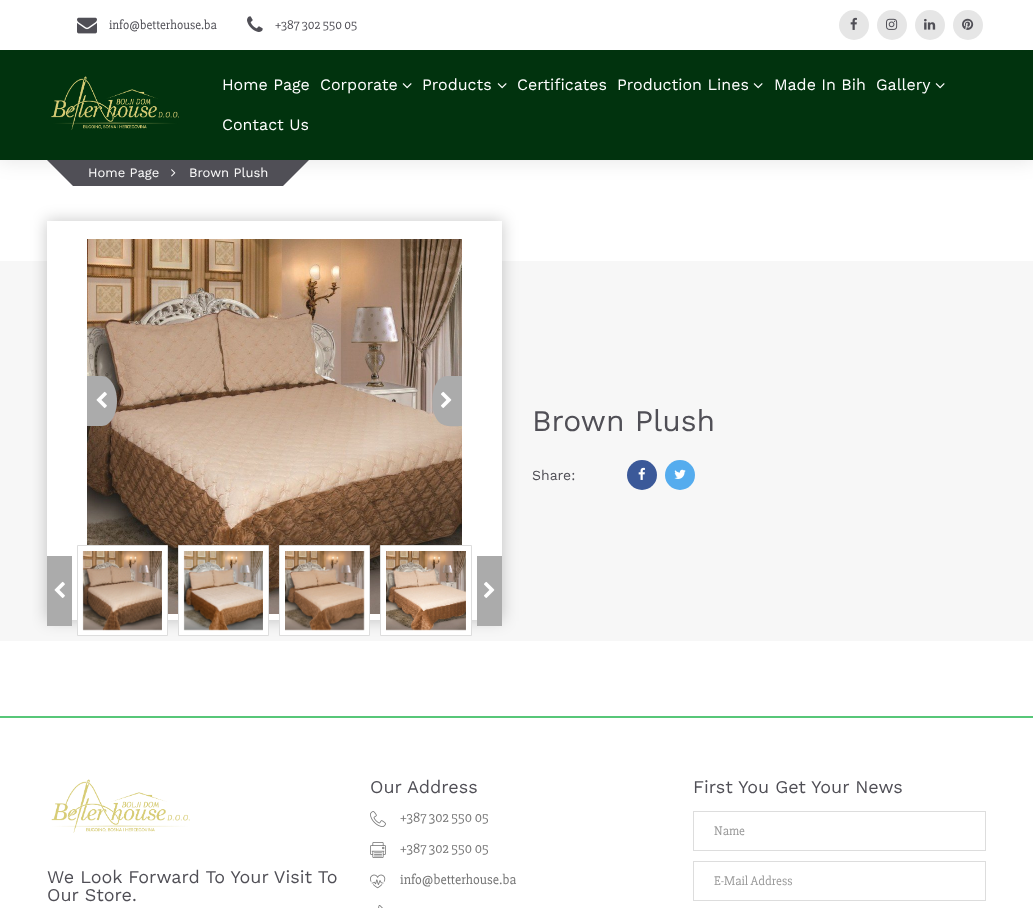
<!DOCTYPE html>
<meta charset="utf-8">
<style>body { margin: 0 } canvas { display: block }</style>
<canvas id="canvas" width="1033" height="908"></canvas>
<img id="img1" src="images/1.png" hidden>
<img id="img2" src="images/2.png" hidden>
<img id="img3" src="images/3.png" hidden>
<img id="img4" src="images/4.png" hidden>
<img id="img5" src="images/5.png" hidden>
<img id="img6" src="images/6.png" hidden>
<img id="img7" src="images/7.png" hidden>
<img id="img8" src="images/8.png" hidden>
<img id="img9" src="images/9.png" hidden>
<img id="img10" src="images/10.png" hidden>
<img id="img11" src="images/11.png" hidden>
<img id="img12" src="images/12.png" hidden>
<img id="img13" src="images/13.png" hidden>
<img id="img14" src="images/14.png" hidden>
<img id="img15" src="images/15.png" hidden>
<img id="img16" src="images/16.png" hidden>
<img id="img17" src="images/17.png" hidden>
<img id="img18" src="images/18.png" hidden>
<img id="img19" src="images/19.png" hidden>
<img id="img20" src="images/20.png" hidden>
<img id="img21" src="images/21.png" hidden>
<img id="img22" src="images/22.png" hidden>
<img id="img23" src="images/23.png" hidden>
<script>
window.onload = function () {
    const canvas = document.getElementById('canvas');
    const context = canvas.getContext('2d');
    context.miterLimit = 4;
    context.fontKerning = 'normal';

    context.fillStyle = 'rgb(255, 255, 255)';
    context.fillRect(0, 0, 1033, 908);
    context.fillStyle = 'rgba(0, 0, 0, 0.1)';
    context.filter = 'blur(10px)';
    context.beginPath();
    context.rect(-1, -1, 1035, 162);
    context.fill();
    context.filter = 'none';
    context.fillStyle = 'rgb(255, 255, 255)';
    context.fillRect(0, 0, 1033, 50);
    context.drawImage(document.getElementById('img1'), 77, 17, 20, 17);
    context.drawImage(document.getElementById('img2'), 247, 16, 16, 16);
    context.fillStyle = 'rgb(230, 230, 230)';
    context.beginPath();
    context.arc(854, 25, 15, 0, 2 * Math.PI);
    context.fill();
    context.drawImage(document.getElementById('img3'), 850, 17, 7, 13);
    context.beginPath();
    context.arc(892, 25, 15, 0, 2 * Math.PI);
    context.fill();
    context.drawImage(document.getElementById('img4'), 886, 18, 12, 12);
    context.beginPath();
    context.arc(930, 25, 15, 0, 2 * Math.PI);
    context.fill();
    context.drawImage(document.getElementById('img5'), 924, 18, 12, 12);
    context.beginPath();
    context.arc(968, 25, 15, 0, 2 * Math.PI);
    context.fill();
    context.drawImage(document.getElementById('img6'), 962, 18, 12, 12);
    context.fillStyle = 'rgb(1, 51, 14)';
    context.fillRect(0, 50, 1033, 110);
    context.drawImage(document.getElementById('img7'), 51, 76, 128, 54);
    context.drawImage(document.getElementById('img8'), 402, 83, 10, 6);
    context.drawImage(document.getElementById('img8'), 497, 83, 10, 6);
    context.drawImage(document.getElementById('img8'), 753, 83, 10, 6);
    context.drawImage(document.getElementById('img8'), 935, 83, 10, 6);
    context.fillStyle = 'rgb(80, 79, 86)';
    context.fillRect(73, 160, 210, 26);
    context.beginPath();
    context.moveTo(47, 160);
    context.lineTo(73, 160);
    context.lineTo(73, 186);
    context.closePath();
    context.fill();
    context.drawImage(document.getElementById('img9'), 171, 169, 5, 8);
    context.beginPath();
    context.moveTo(283, 160);
    context.lineTo(309, 160);
    context.lineTo(283, 186);
    context.closePath();
    context.fill();
    context.fillStyle = 'rgb(247, 247, 247)';
    context.fillRect(32, 261, 1001, 380);
    context.fillStyle = 'rgba(0, 0, 0, 0.2)';
    context.filter = 'blur(7.5px)';
    context.beginPath();
    context.rect(46, 220, 457, 401);
    context.fill();
    context.filter = 'none';
    context.fillStyle = 'rgb(247, 247, 247)';
    context.fillRect(0, 261, 32, 380);
    context.fillStyle = 'rgb(255, 255, 255)';
    context.fillRect(47, 221, 455, 399);
    context.drawImage(document.getElementById('img10'), 87, 239, 375, 375);
    context.fillStyle = 'rgb(171, 171, 171)';
    context.beginPath();
    context.moveTo(87, 376);
    context.lineTo(102, 376);
    context.bezierCurveTo(110, 376, 117, 387, 117, 401);
    context.bezierCurveTo(117, 415, 110, 426, 102, 426);
    context.lineTo(87, 426);
    context.closePath();
    context.fill();
    context.drawImage(document.getElementById('img11'), 96, 391, 11, 17);
    context.beginPath();
    context.moveTo(447, 376);
    context.lineTo(462, 376);
    context.lineTo(462, 426);
    context.bezierCurveTo(457, 426, 448, 427, 444, 425);
    context.bezierCurveTo(427, 420, 429, 376, 447, 376);
    context.closePath();
    context.fill();
    context.drawImage(document.getElementById('img12'), 441, 391, 11, 17);
    context.fillStyle = 'rgb(255, 255, 255)';
    context.beginPath();
    context.rect(77.5, 545.5, 90, 90);
    context.fill();
    context.strokeStyle = 'rgb(221, 221, 221)';
    context.stroke();
    context.drawImage(document.getElementById('img13'), 82, 551, 80, 80);
    context.beginPath();
    context.rect(178.5, 545.5, 90, 90);
    context.fill();
    context.stroke();
    context.drawImage(document.getElementById('img14'), 183, 551, 80, 80);
    context.beginPath();
    context.rect(279.5, 545.5, 90, 90);
    context.fill();
    context.stroke();
    context.drawImage(document.getElementById('img15'), 285, 551, 80, 80);
    context.beginPath();
    context.rect(380.5, 545.5, 91, 90);
    context.fill();
    context.stroke();
    context.drawImage(document.getElementById('img16'), 386, 551, 80, 80);
    context.fillStyle = 'rgb(171, 171, 171)';
    context.fillRect(47, 556, 25, 70);
    context.drawImage(document.getElementById('img11'), 54, 581, 11, 17);
    context.fillRect(477, 556, 25, 70);
    context.drawImage(document.getElementById('img12'), 484, 581, 11, 17);
    context.fillStyle = 'rgb(59, 89, 153)';
    context.beginPath();
    context.arc(642, 475, 15, 0, 2 * Math.PI);
    context.fill();
    context.drawImage(document.getElementById('img17'), 638, 467, 7, 13);
    context.fillStyle = 'rgb(85, 172, 238)';
    context.beginPath();
    context.arc(680, 475, 15, 0, 2 * Math.PI);
    context.fill();
    context.drawImage(document.getElementById('img18'), 674, 469, 12, 10);
    context.fillStyle = 'rgb(87, 199, 120)';
    context.fillRect(0, 716, 1033, 2);
    context.drawImage(document.getElementById('img19'), 51, 779, 139, 54);
    context.drawImage(document.getElementById('img20'), 370, 811, 16, 16);
    context.drawImage(document.getElementById('img21'), 370, 842, 16, 16);
    context.drawImage(document.getElementById('img22'), 370, 874, 16, 15);
    context.drawImage(document.getElementById('img23'), 378, 905, 5, 3);
    context.strokeRect(693.5, 811.5, 292, 39);
    context.strokeRect(693.5, 861.5, 292, 39);
    context.font = '13px "Slabo 27px"';
    context.fillStyle = 'rgb(80, 79, 86)';
    context.fillText('info@betterhouse.ba', 109, 29);
    context.fillText('+387 302 550 05', 275, 29);
    context.font = '16px Work Sans';
    context.fillStyle = 'rgb(255, 255, 255)';
    context.fillText('Home Page', 222, 90);
    context.fillText('Corporate', 320, 90);
    context.fillText('Products', 422, 90);
    context.fillText('Certificates', 517, 90);
    context.fillText('Production Lines', 617, 90);
    context.fillText('Made In Bih', 774, 90);
    context.fillText('Gallery', 876, 90);
    context.fillText('Contact Us', 222, 130);
    context.font = '13px Work Sans';
    context.fillText('Home Page', 88, 177);
    context.fillText('Brown Plush', 189, 177);
    context.font = '30px Work Sans';
    context.fillStyle = 'rgb(80, 79, 86)';
    context.fillText('Brown Plush', 532, 431);
    context.font = '14px Work Sans';
    context.fillText('Share:', 532, 480);
    context.font = '18px Work Sans';
    context.fillText('We Look Forward To Your Visit To', 47, 883);
    context.fillText('Our Store.', 47, 901);
    context.fillText('Our Address', 370, 793);
    context.font = '14px "Slabo 27px"';
    context.fillStyle = 'rgb(118, 118, 118)';
    context.fillText('+387 302 550 05', 400, 822);
    context.fillText('+387 302 550 05', 400, 853);
    context.fillText('info@betterhouse.ba', 400, 884);
    context.font = '18px Work Sans';
    context.fillStyle = 'rgb(80, 79, 86)';
    context.fillText('First You Get Your News', 693, 793);
    context.font = '13px "Slabo 27px"';
    context.fillStyle = 'rgb(153, 153, 153)';
    context.fillText('Name', 714, 835);
    context.fillText('E-Mail Address', 714, 885);
};
</script>
